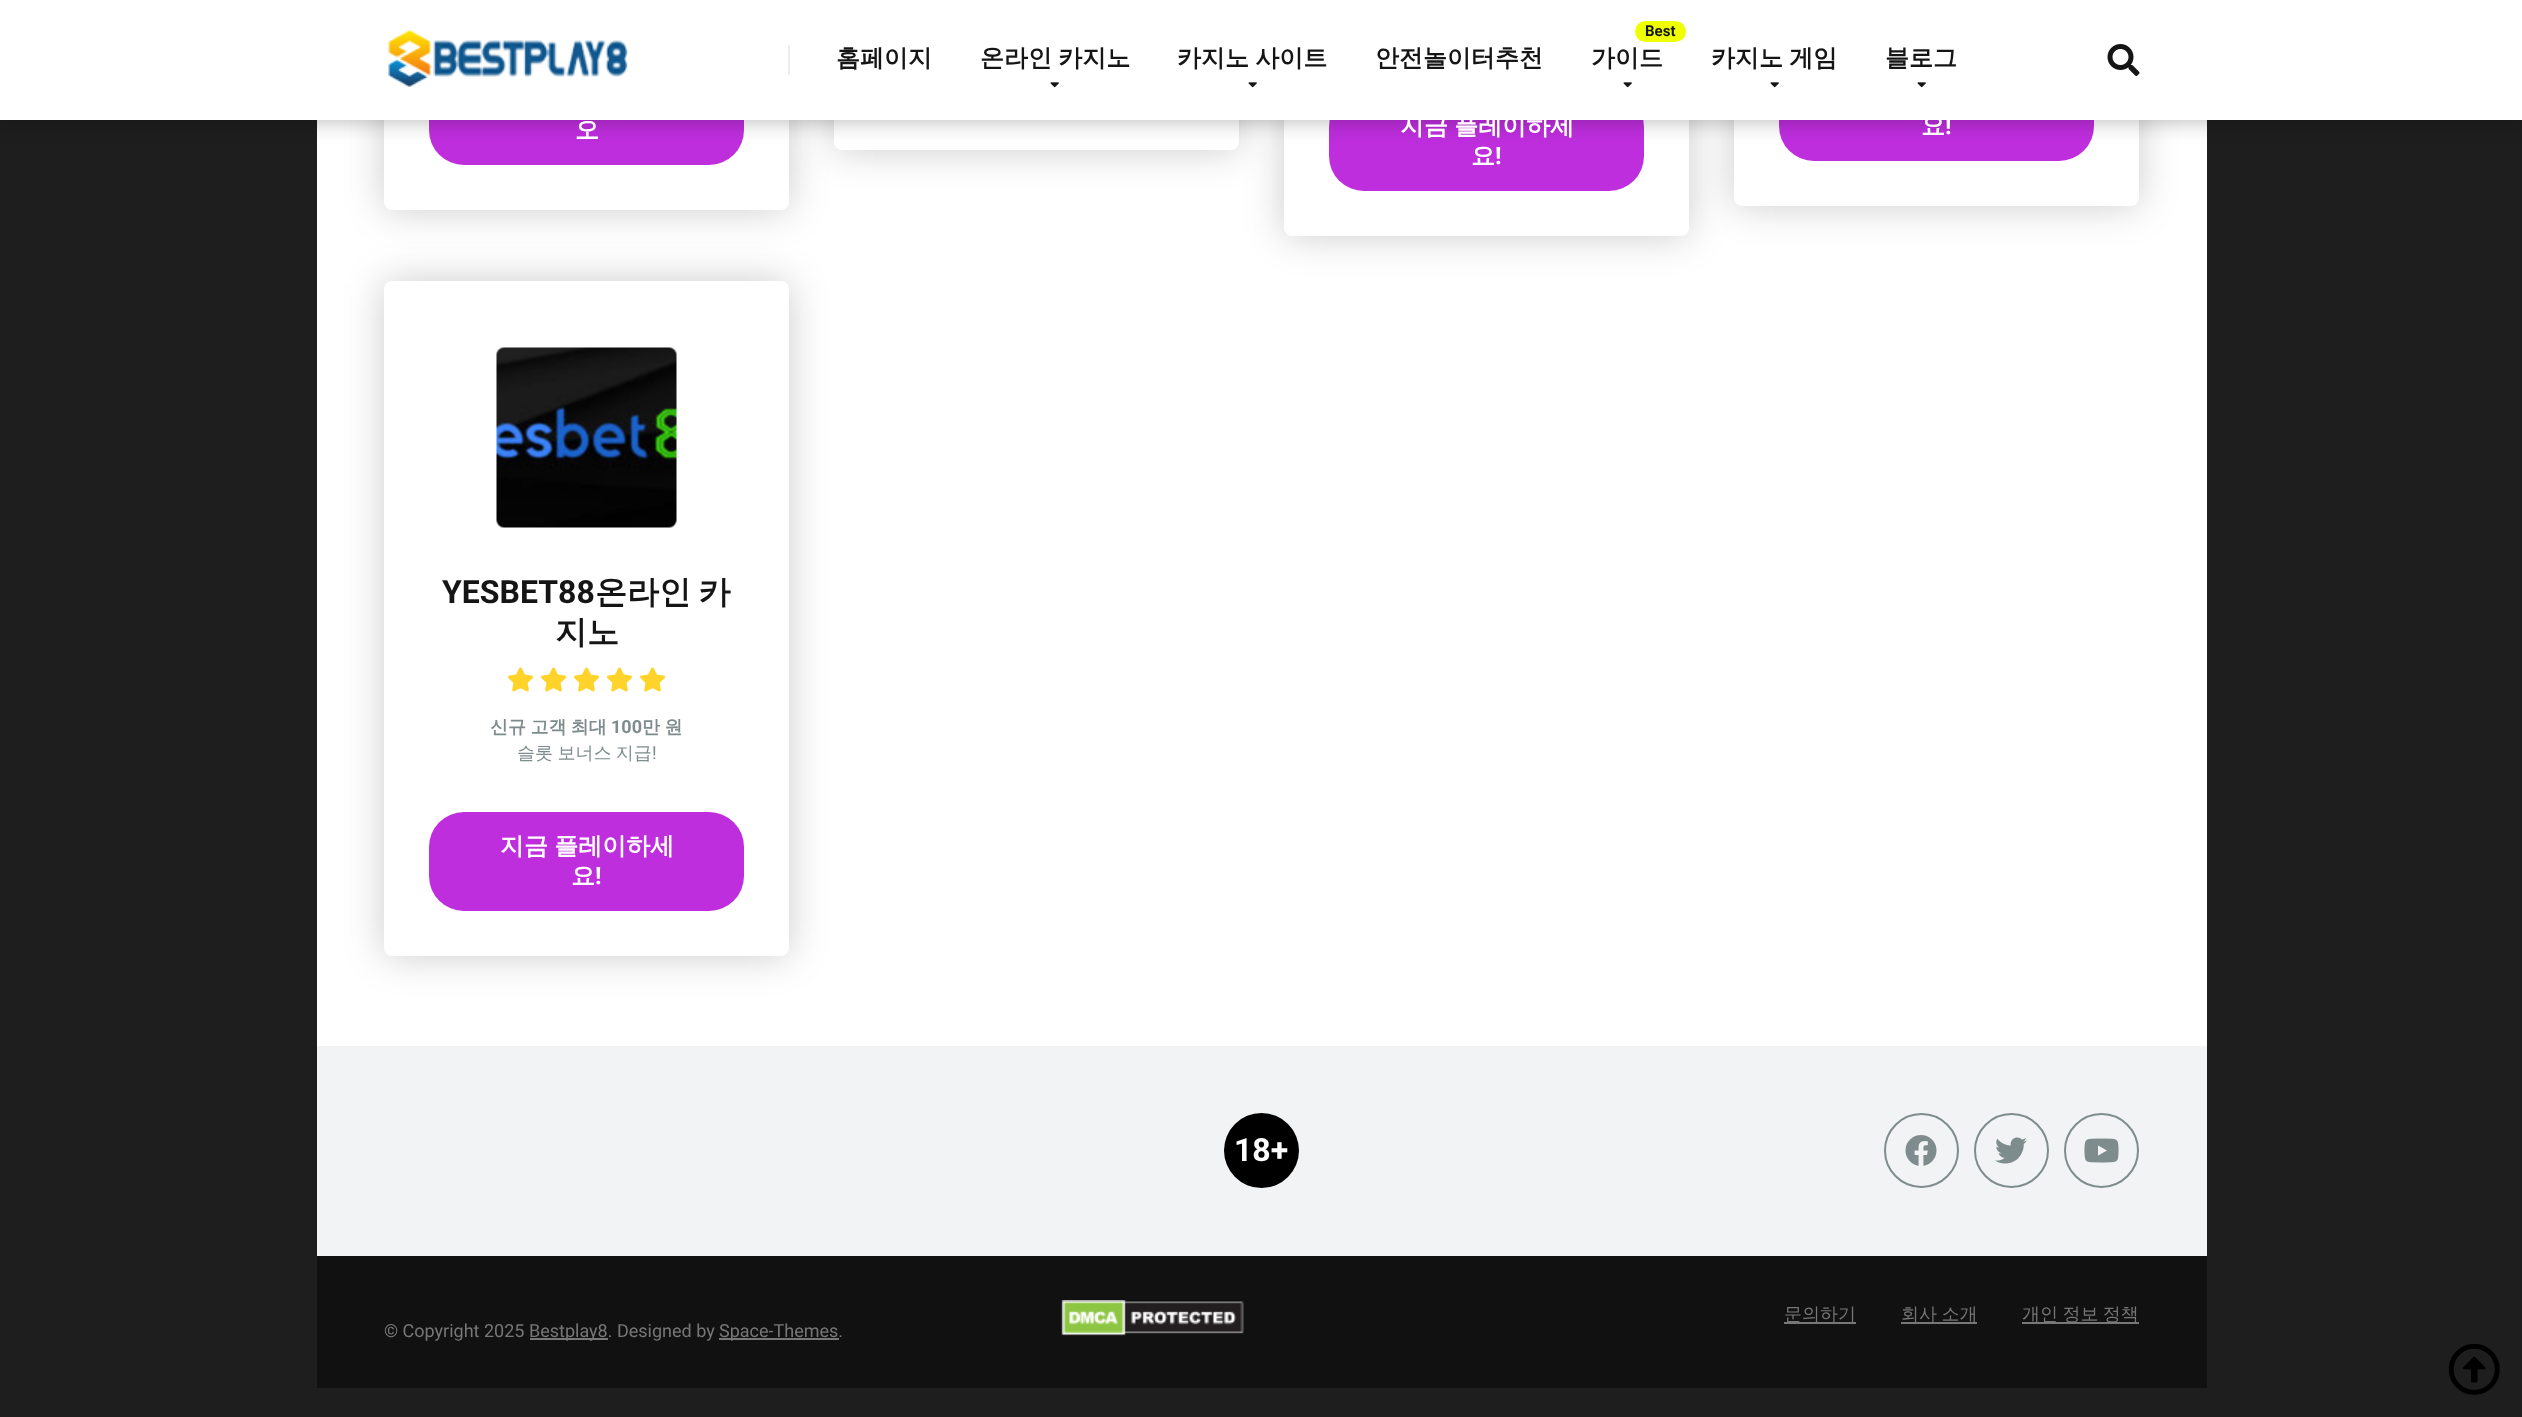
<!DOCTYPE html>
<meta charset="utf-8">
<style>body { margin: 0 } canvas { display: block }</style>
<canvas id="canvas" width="2522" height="1417"></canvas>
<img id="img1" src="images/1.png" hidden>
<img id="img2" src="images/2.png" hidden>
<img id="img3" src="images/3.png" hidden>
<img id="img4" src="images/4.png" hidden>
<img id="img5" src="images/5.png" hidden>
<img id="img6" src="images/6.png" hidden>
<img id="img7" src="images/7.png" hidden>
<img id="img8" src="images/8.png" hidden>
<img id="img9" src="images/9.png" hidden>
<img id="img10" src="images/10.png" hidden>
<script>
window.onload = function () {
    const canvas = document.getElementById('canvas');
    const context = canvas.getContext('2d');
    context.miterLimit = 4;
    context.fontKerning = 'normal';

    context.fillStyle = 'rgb(30, 30, 30)';
    context.fillRect(0, 0, 2522, 1417);
    context.fillStyle = 'rgb(255, 255, 255)';
    context.fillRect(317, 120, 1890, 926);
    context.fillStyle = 'rgba(0, 0, 0, 0.2)';
    context.filter = 'blur(19px)';
    context.beginPath();
    context.roundRect(384, -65, 405, 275, 8);
    context.fill();
    context.filter = 'none';
    context.fillStyle = 'rgb(255, 255, 255)';
    context.beginPath();
    context.roundRect(384, -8, 405, 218, 8);
    context.fill();
    context.fillStyle = 'rgb(190, 46, 221)';
    context.beginPath();
    context.roundRect(429, 66, 315, 99, 35);
    context.fill();
    context.fillStyle = 'rgba(0, 0, 0, 0.2)';
    context.filter = 'blur(19px)';
    context.beginPath();
    context.roundRect(834, -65, 405, 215, 8);
    context.fill();
    context.filter = 'none';
    context.fillStyle = 'rgb(255, 255, 255)';
    context.beginPath();
    context.roundRect(834, -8, 405, 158, 8);
    context.fill();
    context.fillStyle = 'rgba(0, 0, 0, 0.2)';
    context.filter = 'blur(19px)';
    context.beginPath();
    context.roundRect(1284, -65, 405, 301, 8);
    context.fill();
    context.filter = 'none';
    context.fillStyle = 'rgb(255, 255, 255)';
    context.beginPath();
    context.roundRect(1284, -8, 405, 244, 8);
    context.fill();
    context.fillStyle = 'rgb(190, 46, 221)';
    context.beginPath();
    context.roundRect(1329, 92, 315, 99, 35);
    context.fill();
    context.fillStyle = 'rgba(0, 0, 0, 0.2)';
    context.filter = 'blur(19px)';
    context.beginPath();
    context.roundRect(1734, -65, 405, 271, 8);
    context.fill();
    context.filter = 'none';
    context.fillStyle = 'rgb(255, 255, 255)';
    context.beginPath();
    context.roundRect(1734, -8, 405, 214, 8);
    context.fill();
    context.fillStyle = 'rgb(190, 46, 221)';
    context.beginPath();
    context.roundRect(1779, 62, 315, 99, 35);
    context.fill();
    context.fillStyle = 'rgba(0, 0, 0, 0.3)';
    context.filter = 'blur(11px)';
    context.beginPath();
    context.rect(0, 0, 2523, 120);
    context.fill();
    context.filter = 'none';
    context.fillStyle = 'rgb(255, 255, 255)';
    context.fillRect(0, 0, 2522, 120);
    context.drawImage(document.getElementById('img1'), 388, 30, 240, 57);
    context.fillStyle = 'rgb(233, 237, 240)';
    context.fillRect(788, 45, 2, 30);
    context.drawImage(document.getElementById('img2'), 1050, 82, 9, 6);
    context.drawImage(document.getElementById('img2'), 1248, 82, 9, 6);
    context.fillStyle = 'rgb(240, 255, 0)';
    context.beginPath();
    context.roundRect(1635, 21, 51, 21, 10.5);
    context.fill();
    context.drawImage(document.getElementById('img2'), 1623, 82, 9, 6);
    context.drawImage(document.getElementById('img2'), 1770, 82, 9, 6);
    context.drawImage(document.getElementById('img2'), 1917, 82, 9, 6);
    context.drawImage(document.getElementById('img3'), 2107, 44, 33, 32);
    context.fillStyle = 'rgba(0, 0, 0, 0.2)';
    context.filter = 'blur(19px)';
    context.beginPath();
    context.roundRect(384, 281, 405, 675, 8);
    context.fill();
    context.filter = 'none';
    context.fillStyle = 'rgb(255, 255, 255)';
    context.beginPath();
    context.roundRect(384, 281, 405, 675, 8);
    context.fill();
    context.drawImage(document.getElementById('img4'), 496, 347, 181, 181);
    context.drawImage(document.getElementById('img5'), 508, 667, 25, 25);
    context.drawImage(document.getElementById('img5'), 541, 667, 25, 25);
    context.drawImage(document.getElementById('img5'), 574, 667, 25, 25);
    context.drawImage(document.getElementById('img5'), 607, 667, 25, 25);
    context.drawImage(document.getElementById('img5'), 640, 667, 25, 25);
    context.fillStyle = 'rgb(190, 46, 221)';
    context.beginPath();
    context.roundRect(429, 812, 315, 99, 35);
    context.fill();
    context.fillStyle = 'rgb(241, 243, 244)';
    context.fillRect(317, 1046, 1890, 210);
    context.fillStyle = 'rgb(0, 0, 0)';
    context.beginPath();
    context.arc(1261.5, 1150.5, 37.5, 0, 2 * Math.PI);
    context.fill();
    context.beginPath();
    context.arc(1921.5, 1150.5, 36.5, 0, 2 * Math.PI);
    context.strokeStyle = 'rgb(127, 140, 141)';
    context.lineWidth = 2;
    context.stroke();
    context.drawImage(document.getElementById('img6'), 1905, 1135, 32, 31);
    context.beginPath();
    context.arc(2011.5, 1150.5, 36.5, 0, 2 * Math.PI);
    context.stroke();
    context.drawImage(document.getElementById('img7'), 1995, 1137, 32, 27);
    context.beginPath();
    context.arc(2101.5, 1150.5, 36.5, 0, 2 * Math.PI);
    context.stroke();
    context.drawImage(document.getElementById('img8'), 2084, 1138, 35, 25);
    context.fillStyle = 'rgb(17, 17, 17)';
    context.fillRect(317, 1256, 1890, 132);
    context.fillStyle = 'rgb(119, 119, 119)';
    context.fillRect(1784, 1322, 72, 2);
    context.fillRect(1901, 1322, 76, 2);
    context.fillRect(2022, 1322, 117, 2);
    context.fillRect(530, 1338, 78, 2);
    context.fillRect(719, 1338, 120, 2);
    context.drawImage(document.getElementById('img9'), 1061, 1300, 183, 36);
    context.drawImage(document.getElementById('img10'), 2448, 1344, 52, 51);
    context.font = 'bold 24px WenQuanYi Zen Hei';
    context.fillStyle = 'rgb(21, 21, 21)';
    context.fillText('홈페이지', 836, 66);
    context.wordSpacing = '-1px';
    context.fillText('온라인 카지노', 980, 66);
    context.fillText('카지노 사이트', 1177, 66);
    context.wordSpacing = '0px';
    context.fillText('안전놀이터추천', 1375, 66);
    context.font = 'bold 15px Roboto';
    context.fillText('Best', 1645, 36);
    context.font = 'bold 24px WenQuanYi Zen Hei';
    context.fillText('가이드', 1591, 66);
    context.wordSpacing = '-1px';
    context.fillText('카지노 게임', 1711, 66);
    context.wordSpacing = '0px';
    context.fillText('블로그', 1885, 66);
    context.fillStyle = 'rgb(255, 255, 255)';
    context.fillText('오', 575, 138);
    context.wordSpacing = '-1px';
    context.fillText('지금 플레이하세', 1400, 134);
    context.wordSpacing = '0px';
    context.fillText('요', 1471, 164);
    context.font = 'bold 24px Roboto';
    context.fillText('!', 1495, 164);
    context.font = 'bold 24px WenQuanYi Zen Hei';
    context.fillText('요', 1921, 134);
    context.font = 'bold 24px Roboto';
    context.fillText('!', 1945, 134);
    context.font = 'bold 32px Roboto';
    context.fillStyle = 'rgb(21, 21, 21)';
    context.fillText('YESBET88', 442, 603);
    context.wordSpacing = '-2px';
    context.font = 'bold 32px WenQuanYi Zen Hei';
    context.fillText('온라인 카', 595, 603);
    context.wordSpacing = '0px';
    context.fillText('지노', 555, 643);
    context.wordSpacing = '-1px';
    context.font = 'bold 18px WenQuanYi Zen Hei';
    context.fillStyle = 'rgb(127, 140, 141)';
    context.fillText('신규 고객 최대', 490, 733);
    context.wordSpacing = '0px';
    context.font = 'bold 18px Roboto';
    context.fillText('100', 611, 733);
    context.wordSpacing = '-1px';
    context.font = 'bold 18px WenQuanYi Zen Hei';
    context.fillText('만 원', 642, 733);
    context.font = '500 18px WenQuanYi Zen Hei';
    context.fillText('슬롯 보너스 지급', 517, 759);
    context.wordSpacing = '0px';
    context.font = '18px Roboto';
    context.fillText('!', 652, 759);
    context.wordSpacing = '-1px';
    context.font = 'bold 24px WenQuanYi Zen Hei';
    context.fillStyle = 'rgb(255, 255, 255)';
    context.fillText('지금 플레이하세', 500, 854);
    context.wordSpacing = '0px';
    context.fillText('요', 571, 884);
    context.font = 'bold 24px Roboto';
    context.fillText('!', 595, 884);
    context.font = 'bold 32px Roboto';
    context.fillText('18+', 1234, 1161);
    context.font = '500 18px WenQuanYi Zen Hei';
    context.fillStyle = 'rgb(119, 119, 119)';
    context.fillText('문의하기', 1784, 1320);
    context.wordSpacing = '-1px';
    context.fillText('회사 소개', 1901, 1320);
    context.fillText('개인 정보 정책', 2022, 1320);
    context.wordSpacing = '0px';
    context.font = '18px Roboto';
    context.fillText('© Copyright 2025', 384, 1337);
    context.fillText('Bestplay8. Designed by', 529, 1337);
    context.fillText('Space-Themes.', 719, 1337);
};
</script>
